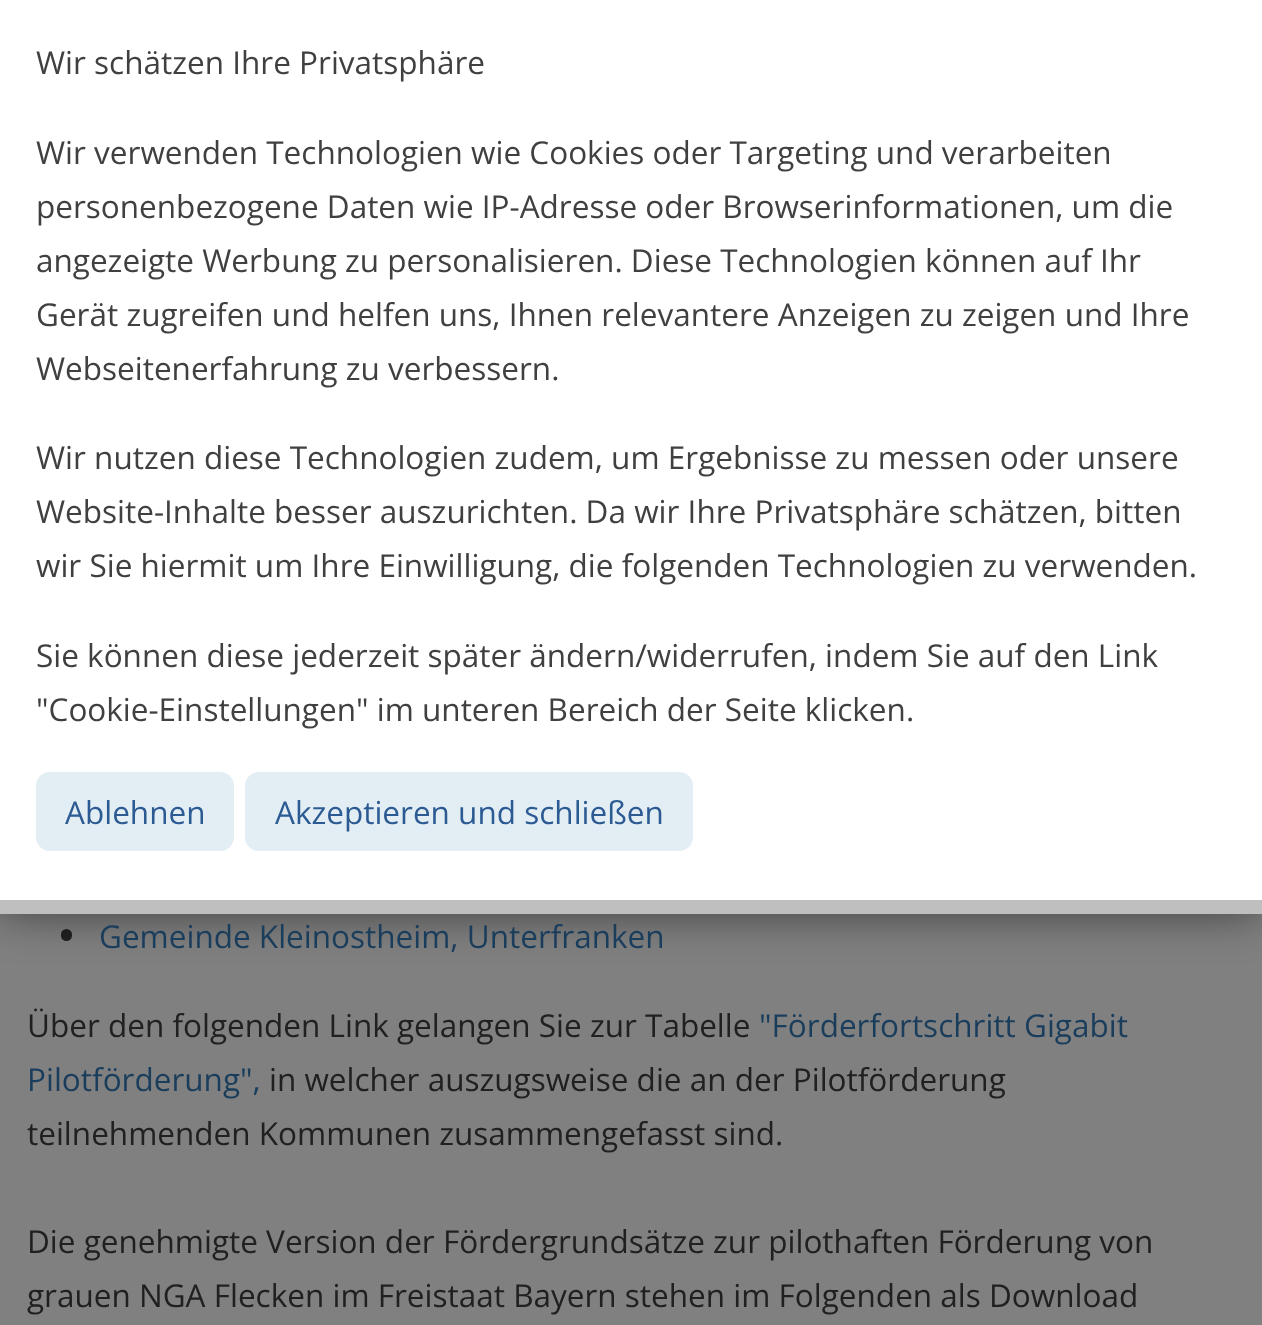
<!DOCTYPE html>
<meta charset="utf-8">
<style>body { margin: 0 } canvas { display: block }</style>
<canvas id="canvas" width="1262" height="1325"></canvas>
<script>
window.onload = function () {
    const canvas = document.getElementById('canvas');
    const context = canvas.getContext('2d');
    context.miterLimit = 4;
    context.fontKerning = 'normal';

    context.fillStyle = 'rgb(128, 128, 128)';
    context.fillRect(0, 0, 1262, 1325);
    context.fillStyle = 'rgb(32, 32, 32)';
    context.beginPath();
    context.roundRect(61, 929, 11, 12, 5.5);
    context.fill();
    context.fillStyle = 'rgba(0, 0, 0, 0.5)';
    context.filter = 'blur(22.5px)';
    context.beginPath();
    context.rect(0, 0, 1262, 914);
    context.fill();
    context.filter = 'none';
    context.fillStyle = 'rgb(255, 255, 255)';
    context.fillRect(0, 0, 1262, 900);
    context.fillStyle = 'rgb(191, 191, 191)';
    context.fillRect(0, 900, 1262, 14);
    context.fillStyle = 'rgb(227, 238, 244)';
    context.beginPath();
    context.roundRect(37, 773, 196, 77, 13);
    context.fill();
    context.strokeStyle = 'rgb(227, 238, 244)';
    context.lineWidth = 2;
    context.stroke();
    context.beginPath();
    context.roundRect(246, 773, 446, 77, 13);
    context.fill();
    context.stroke();
    context.font = '31.5px Open Sans';
    context.fillStyle = 'rgb(64, 64, 64)';
    context.fillText('Wir schätzen Ihre Privatsphäre', 36, 74);
    context.fillText('Wir verwenden Technologien wie Cookies oder Targeting und verarbeiten', 36, 164);
    context.fillText('personenbezogene Daten wie IP-Adresse oder Browserinformationen, um die', 36, 218);
    context.fillText('angezeigte Werbung zu personalisieren. Diese Technologien können auf Ihr', 36, 272);
    context.fillText('Gerät zugreifen und helfen uns, Ihnen relevantere Anzeigen zu zeigen und Ihre', 36, 326);
    context.fillText('Webseitenerfahrung zu verbessern.', 36, 380);
    context.fillText('Wir nutzen diese Technologien zudem, um Ergebnisse zu messen oder unsere', 36, 469);
    context.fillText('Website-Inhalte besser auszurichten. Da wir Ihre Privatsphäre schätzen, bitten', 36, 523);
    context.fillText('wir Sie hiermit um Ihre Einwilligung, die folgenden Technologien zu verwenden.', 36, 577);
    context.fillText('Sie können diese jederzeit später ändern/widerrufen, indem Sie auf den Link', 36, 667);
    context.fillText('"Cookie-Einstellungen" im unteren Bereich der Seite klicken.', 36, 721);
    context.fillStyle = 'rgb(44, 90, 147)';
    context.fillText('Ablehnen', 65, 824);
    context.fillText('Akzeptieren und schließen', 275, 824);
    context.fillStyle = 'rgb(26, 61, 92)';
    context.fillText('Gemeinde Kleinostheim, Unterfranken', 99, 948);
    context.fillStyle = 'rgb(32, 32, 32)';
    context.fillText('Über den folgenden Link gelangen Sie zur Tabelle', 27, 1037);
    context.fillStyle = 'rgb(26, 61, 92)';
    context.fillText('"Förderfortschritt Gigabit', 759, 1037);
    context.fillText('Pilotförderung",', 27, 1091);
    context.fillStyle = 'rgb(32, 32, 32)';
    context.fillText('in welcher auszugsweise die an der Pilotförderung', 269, 1091);
    context.fillText('teilnehmenden Kommunen zusammengefasst sind.', 27, 1145);
    context.fillText('Die genehmigte Version der Fördergrundsätze zur pilothaften Förderung von', 27, 1253);
    context.fillText('grauen NGA Flecken im Freistaat Bayern stehen im Folgenden als Download', 27, 1307);
};
</script>
